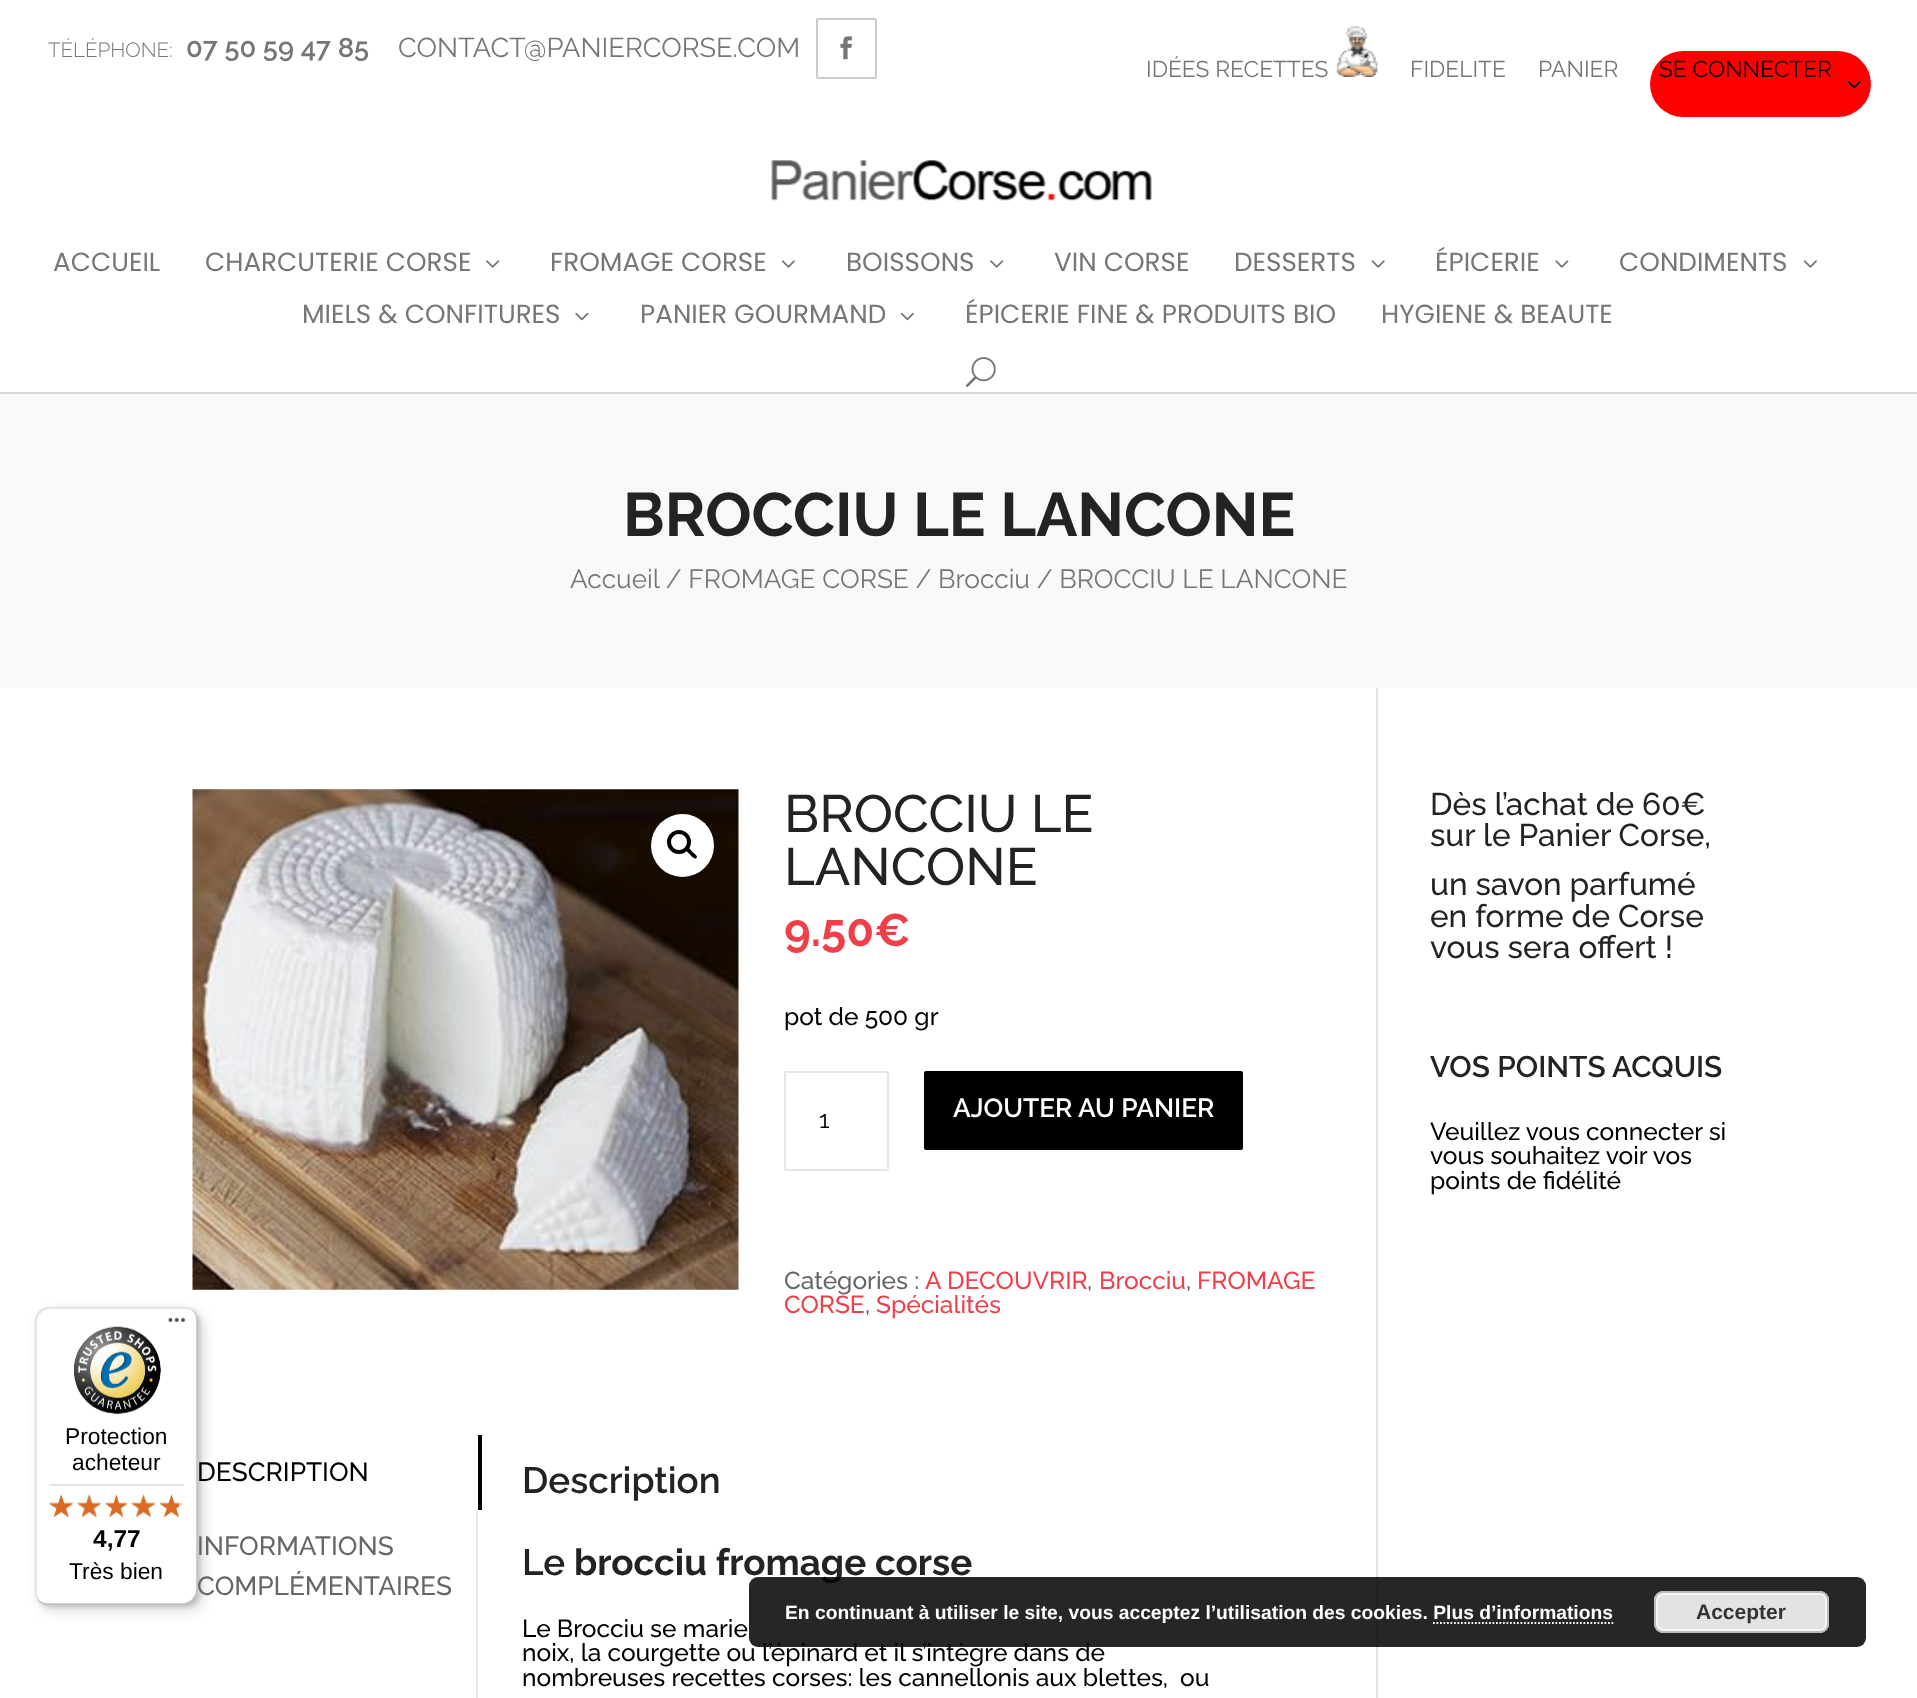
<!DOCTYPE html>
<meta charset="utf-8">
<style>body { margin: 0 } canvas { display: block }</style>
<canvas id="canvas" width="1917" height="1698"></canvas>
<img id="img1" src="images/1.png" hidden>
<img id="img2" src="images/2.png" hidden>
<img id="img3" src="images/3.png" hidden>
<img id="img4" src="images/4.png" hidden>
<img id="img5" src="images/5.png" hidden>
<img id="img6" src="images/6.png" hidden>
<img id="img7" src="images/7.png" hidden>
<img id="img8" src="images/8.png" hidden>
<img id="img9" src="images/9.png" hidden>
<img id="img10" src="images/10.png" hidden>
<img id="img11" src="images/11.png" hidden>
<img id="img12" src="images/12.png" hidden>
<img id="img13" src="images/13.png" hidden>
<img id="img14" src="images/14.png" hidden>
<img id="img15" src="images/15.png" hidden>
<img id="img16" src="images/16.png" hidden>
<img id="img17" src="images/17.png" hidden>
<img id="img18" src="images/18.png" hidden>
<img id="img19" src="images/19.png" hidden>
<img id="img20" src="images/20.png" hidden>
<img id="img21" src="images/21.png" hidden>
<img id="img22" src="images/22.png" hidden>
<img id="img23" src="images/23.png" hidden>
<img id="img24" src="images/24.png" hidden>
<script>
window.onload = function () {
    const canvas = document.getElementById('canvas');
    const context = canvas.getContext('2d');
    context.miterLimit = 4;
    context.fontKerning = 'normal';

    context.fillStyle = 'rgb(255, 255, 255)';
    context.fillRect(0, 0, 1917, 1698);
    context.beginPath();
    context.roundRect(817, 19, 59, 59, 1);
    context.strokeStyle = 'rgb(204, 204, 204)';
    context.lineWidth = 2;
    context.stroke();
    context.drawImage(document.getElementById('img1'), 840, 36, 12, 24);
    context.drawImage(document.getElementById('img2'), 1336, 25, 42, 52);
    context.fillStyle = 'rgb(255, 0, 0)';
    context.beginPath();
    context.roundRect(1650, 51, 221, 66, 33);
    context.fill();
    context.drawImage(document.getElementById('img3'), 1847, 81, 14, 8);
    context.fillStyle = 'rgb(217, 217, 217)';
    context.fillRect(0, 392, 1917, 2);
    context.drawImage(document.getElementById('img4'), 771, 160, 381, 41);
    context.drawImage(document.getElementById('img5'), 486, 260, 14, 8);
    context.drawImage(document.getElementById('img6'), 781, 260, 14, 8);
    context.drawImage(document.getElementById('img5'), 990, 260, 14, 8);
    context.drawImage(document.getElementById('img7'), 1371, 260, 14, 8);
    context.drawImage(document.getElementById('img8'), 1555, 260, 14, 8);
    context.drawImage(document.getElementById('img6'), 1803, 260, 14, 8);
    context.drawImage(document.getElementById('img9'), 575, 312, 14, 9);
    context.drawImage(document.getElementById('img10'), 900, 312, 14, 9);
    context.drawImage(document.getElementById('img11'), 965, 357, 31, 30);
    context.fillStyle = 'rgb(249, 249, 249)';
    context.fillRect(0, 394, 1917, 294);
    context.fillStyle = 'rgb(226, 226, 226)';
    context.fillRect(1376, 688, 2, 1010);
    context.drawImage(document.getElementById('img12'), 192, 789, 547, 501);
    context.fillStyle = 'rgb(255, 255, 255)';
    context.beginPath();
    context.arc(682.5, 845.5, 31.5, 0, 2 * Math.PI);
    context.fill();
    context.beginPath();
    context.arc(679, 842, 10, 0, 2 * Math.PI);
    context.strokeStyle = 'rgb(0, 0, 0)';
    context.lineWidth = 4;
    context.stroke();
    context.fillStyle = 'rgb(0, 0, 0)';
    context.beginPath();
    context.moveTo(686.5, 848);
    context.bezierCurveTo(688.5, 846, 691.5, 851, 692.5, 852);
    context.bezierCurveTo(693.5, 853, 698.5, 856, 696.5, 858);
    context.bezierCurveTo(694.5, 860, 691, 855.5, 690, 854.5);
    context.bezierCurveTo(689, 853.5, 684.5, 850, 686.5, 848);
    context.closePath();
    context.fill();
    context.beginPath();
    context.roundRect(925, 1072, 317, 77, 1);
    context.fill();
    context.lineWidth = 2;
    context.stroke();
    context.beginPath();
    context.roundRect(785, 1072, 103, 98, 1);
    context.strokeStyle = 'rgb(230, 230, 230)';
    context.stroke();
    context.fillRect(478, 1435, 4, 75);
    context.fillStyle = 'rgb(230, 230, 230)';
    context.fillRect(476, 1510, 2, 188);
    context.fillStyle = 'rgba(0, 0, 0, 0.15)';
    context.filter = 'blur(7px)';
    context.beginPath();
    context.roundRect(40, 1313, 163, 297, 14);
    context.fill();
    context.filter = 'none';
    context.filter = 'blur(2px)';
    context.beginPath();
    context.roundRect(37, 1309, 163, 298, 14);
    context.fill();
    context.filter = 'none';
    context.fillStyle = 'rgb(255, 255, 255)';
    context.beginPath();
    context.roundRect(35, 1307, 163, 298, 14);
    context.fill();
    context.fillStyle = 'rgba(0, 0, 0, 0.1)';
    context.beginPath();
    context.moveTo(51, 1309);
    context.lineTo(186, 1309);
    context.bezierCurveTo(189, 1309, 193, 1310, 195, 1313);
    context.bezierCurveTo(193, 1309, 189, 1307, 184, 1307);
    context.lineTo(49, 1307);
    context.bezierCurveTo(41, 1307, 35, 1313, 35, 1321);
    context.lineTo(35, 1591);
    context.bezierCurveTo(35, 1597, 38, 1601, 43, 1604);
    context.bezierCurveTo(39, 1601, 37, 1597, 37, 1592);
    context.lineTo(37, 1323);
    context.bezierCurveTo(37, 1315, 43, 1309, 51, 1309);
    context.closePath();
    context.fill();
    context.fillStyle = 'rgba(0, 0, 0, 0.2)';
    context.beginPath();
    context.moveTo(38, 1599);
    context.bezierCurveTo(40, 1603, 44, 1605, 49, 1605);
    context.lineTo(184, 1605);
    context.bezierCurveTo(192, 1605, 198, 1599, 198, 1591);
    context.lineTo(198, 1321);
    context.bezierCurveTo(198, 1315, 195, 1311, 190, 1308);
    context.bezierCurveTo(194, 1311, 196, 1315, 196, 1320);
    context.lineTo(196, 1589);
    context.bezierCurveTo(196, 1597, 190, 1603, 182, 1603);
    context.lineTo(47, 1603);
    context.bezierCurveTo(44, 1603, 40, 1602, 38, 1599);
    context.closePath();
    context.fill();
    context.fillStyle = 'rgba(50, 50, 50, 0.2)';
    context.beginPath();
    context.moveTo(38, 1599);
    context.bezierCurveTo(40, 1603, 44, 1605, 49, 1605);
    context.lineTo(184, 1605);
    context.bezierCurveTo(192, 1605, 198, 1599, 198, 1591);
    context.lineTo(198, 1321);
    context.bezierCurveTo(198, 1316, 196, 1312, 192, 1310);
    context.bezierCurveTo(195, 1312, 197, 1316, 197, 1320);
    context.lineTo(197, 1590);
    context.bezierCurveTo(197, 1597, 190, 1604, 183, 1604);
    context.lineTo(48, 1604);
    context.bezierCurveTo(44, 1604, 40, 1602, 38, 1599);
    context.closePath();
    context.fill();
    context.fillStyle = 'rgba(255, 255, 255, 0.3)';
    context.beginPath();
    context.moveTo(40, 1601);
    context.bezierCurveTo(42, 1604, 45, 1605, 49, 1605);
    context.lineTo(184, 1605);
    context.bezierCurveTo(192, 1605, 198, 1599, 198, 1591);
    context.lineTo(198, 1321);
    context.bezierCurveTo(198, 1316, 196, 1312, 193, 1310);
    context.bezierCurveTo(195, 1313, 197, 1316, 197, 1320);
    context.lineTo(197, 1590);
    context.bezierCurveTo(197, 1598, 191, 1604, 183, 1604);
    context.lineTo(48, 1604);
    context.bezierCurveTo(45, 1604, 42, 1603, 40, 1601);
    context.closePath();
    context.fill();
    context.drawImage(document.getElementById('img13'), 168, 1317, 17, 5);
    context.drawImage(document.getElementById('img14'), 74, 1326, 87, 88);
    context.fillStyle = 'rgb(229, 229, 229)';
    context.fillRect(49, 1484, 135, 2);
    context.drawImage(document.getElementById('img15'), 49, 1494, 24, 23);
    context.drawImage(document.getElementById('img16'), 77, 1494, 24, 23);
    context.drawImage(document.getElementById('img17'), 105, 1494, 22, 23);
    context.drawImage(document.getElementById('img18'), 131, 1494, 25, 23);
    context.drawImage(document.getElementById('img19'), 160, 1494, 23, 23);
    context.drawImage(document.getElementById('img20'), 49, 1494, 24, 24);
    context.drawImage(document.getElementById('img21'), 77, 1494, 25, 24);
    context.drawImage(document.getElementById('img22'), 105, 1494, 23, 24);
    context.drawImage(document.getElementById('img23'), 131, 1494, 25, 24);
    context.drawImage(document.getElementById('img24'), 159, 1494, 20, 24);
    context.font = '300 20.5px Raleway';
    context.fillStyle = 'rgb(118, 118, 118)';
    context.fillText('TÉLÉPHONE:', 48, 57);
    context.font = '600 27.25px Raleway';
    context.fillText('07 50 59 47 85', 186, 57);
    context.font = '27.25px Raleway';
    context.fillText('CONTACT@PANIERCORSE.COM', 398, 57);
    context.font = '22.75px Raleway';
    context.fillText('IDÉES RECETTES', 1146, 77);
    context.fillText('FIDELITE', 1410, 77);
    context.fillText('PANIER', 1538, 77);
    context.fillStyle = 'rgb(0, 0, 0)';
    context.fillText('SE CONNECTER', 1659, 77);
    context.font = '26.25px Poppins';
    context.fillStyle = 'rgb(118, 118, 118)';
    context.fillText('ACCUEIL', 53, 271);
    context.fillText('CHARCUTERIE CORSE', 205, 271);
    context.fillText('FROMAGE CORSE', 550, 271);
    context.fillText('BOISSONS', 846, 271);
    context.fillText('VIN CORSE', 1054, 271);
    context.fillText('DESSERTS', 1234, 271);
    context.fillText('ÉPICERIE', 1435, 271);
    context.fillText('CONDIMENTS', 1619, 271);
    context.fillText('MIELS & CONFITURES', 302, 323);
    context.fillText('PANIER GOURMAND', 640, 323);
    context.fillText('ÉPICERIE FINE & PRODUITS BIO', 965, 323);
    context.fillText('HYGIENE & BEAUTE', 1381, 323);
    context.font = 'bold 61.25px Raleway';
    context.fillStyle = 'rgb(35, 35, 35)';
    context.fillText('BROCCIU LE LANCONE', 623, 536);
    context.font = '26.25px Raleway';
    context.fillStyle = 'rgb(118, 118, 118)';
    context.fillText('Accueil / FROMAGE CORSE / Brocciu / BROCCIU LE LANCONE', 570, 588);
    context.font = '500 52.5px Raleway';
    context.fillStyle = 'rgb(35, 35, 35)';
    context.fillText('BROCCIU LE', 784, 832);
    context.fillText('LANCONE', 784, 885);
    context.font = 'bold 45.5px Raleway';
    context.fillStyle = 'rgb(239, 63, 73)';
    context.fillText('9.50€', 784, 946);
    context.font = '500 24.5px Raleway';
    context.fillStyle = 'rgb(0, 0, 0)';
    context.fillText('pot de 500 gr', 784, 1025);
    context.font = '600 26.25px Raleway';
    context.fillStyle = 'rgb(255, 255, 255)';
    context.fillText('AJOUTER AU PANIER', 953, 1117);
    context.font = '24.5px Raleway';
    context.fillStyle = 'rgb(0, 0, 0)';
    context.fillText('1', 819, 1128);
    context.font = '500 24.5px Raleway';
    context.fillStyle = 'rgb(102, 102, 102)';
    context.fillText('Catégories :', 784, 1289);
    context.fillStyle = 'rgb(239, 63, 73)';
    context.fillText('A DECOUVRIR', 925, 1289);
    context.fillStyle = 'rgb(102, 102, 102)';
    context.fillText(',', 1087, 1289);
    context.fillStyle = 'rgb(239, 63, 73)';
    context.fillText('Brocciu', 1099, 1289);
    context.fillStyle = 'rgb(102, 102, 102)';
    context.fillText(',', 1186, 1289);
    context.fillStyle = 'rgb(239, 63, 73)';
    context.fillText('FROMAGE', 1197, 1289);
    context.fillText('CORSE', 784, 1313);
    context.fillStyle = 'rgb(102, 102, 102)';
    context.fillText(',', 865, 1313);
    context.fillStyle = 'rgb(239, 63, 73)';
    context.fillText('Spécialités', 876, 1313);
    context.font = '500 26.25px Raleway';
    context.fillStyle = 'rgb(0, 0, 0)';
    context.fillText('DESCRIPTION', 197, 1481);
    context.fillStyle = 'rgb(102, 102, 102)';
    context.fillText('INFORMATIONS', 197, 1555);
    context.fillText('COMPLÉMENTAIRES', 197, 1595);
    context.font = '600 36.75px Raleway';
    context.fillStyle = 'rgb(35, 35, 35)';
    context.fillText('Description', 522, 1493);
    context.fillText('Le', 522, 1575);
    context.font = 'bold 36.75px Raleway';
    context.fillText('brocciu fromage corse', 574, 1575);
    context.font = '500 24.5px Raleway';
    context.fillStyle = 'rgb(0, 0, 0)';
    context.fillText('Le Brocciu se marie', 522, 1637);
    context.fillText('noix, la courgette ou l’épinard et il s’intègre dans de', 522, 1661);
    context.fillText('nombreuses recettes corses: les cannellonis aux blettes,', 522, 1686);
    context.fillText('ou', 1180, 1686);
    context.font = '500 31.5px Raleway';
    context.fillStyle = 'rgb(35, 35, 35)';
    context.fillText('Dès l’achat de 60€', 1430, 815);
    context.fillText('sur le Panier Corse,', 1430, 846);
    context.fillText('un savon parfumé', 1430, 895);
    context.fillText('en forme de Corse', 1430, 927);
    context.fillText('vous sera offert !', 1430, 958);
    context.font = '600 29.75px Raleway';
    context.fillText('VOS POINTS ACQUIS', 1430, 1077);
    context.font = '500 24.5px Raleway';
    context.fillStyle = 'rgb(0, 0, 0)';
    context.fillText('Veuillez vous connecter si', 1430, 1140);
    context.fillText('vous souhaitez voir vos', 1430, 1164);
    context.fillText('points de fidélité', 1430, 1189);
    context.font = '22.75px Liberation Sans';
    context.fillText('Protection', 65, 1444);
    context.fillText('acheteur', 72, 1470);
    context.font = 'bold 24.5px Liberation Sans';
    context.fillText('4,77', 93, 1547);
    context.font = '22.75px Liberation Sans';
    context.fillText('Très bien', 69, 1579);
    context.fillStyle = 'rgba(0, 0, 0, 0.85)';
    context.beginPath();
    context.roundRect(749, 1577, 1117, 70, 9);
    context.fill();
    context.font = 'bold 19.25px Liberation Sans';
    context.fillStyle = 'rgb(255, 255, 255)';
    context.fillText('En continuant à utiliser le site, vous acceptez l’utilisation des cookies. Plus d’informations', 785, 1619);
    context.fillStyle = 'rgb(227, 227, 227)';
    context.beginPath();
    context.roundRect(1654, 1591, 175, 42, 9);
    context.fill();
    context.beginPath();
    context.roundRect(1657, 1594, 169, 36, 6);
    context.strokeStyle = 'rgb(246, 246, 246)';
    context.stroke();
    context.beginPath();
    context.roundRect(1655, 1592, 173, 40, 8);
    context.strokeStyle = 'rgb(187, 187, 187)';
    context.stroke();
    context.font = 'bold 21px Liberation Sans';
    context.fillStyle = 'rgb(51, 51, 51)';
    context.fillText('Accepter', 1696, 1619);
    context.beginPath();
    context.moveTo(1433, 1623);
    context.lineTo(1613.5, 1623);
    context.strokeStyle = 'rgb(255, 255, 255)';
    context.lineWidth = 1.8;
    context.setLineDash([1.75, 1.75]);
    context.stroke();
};
</script>
